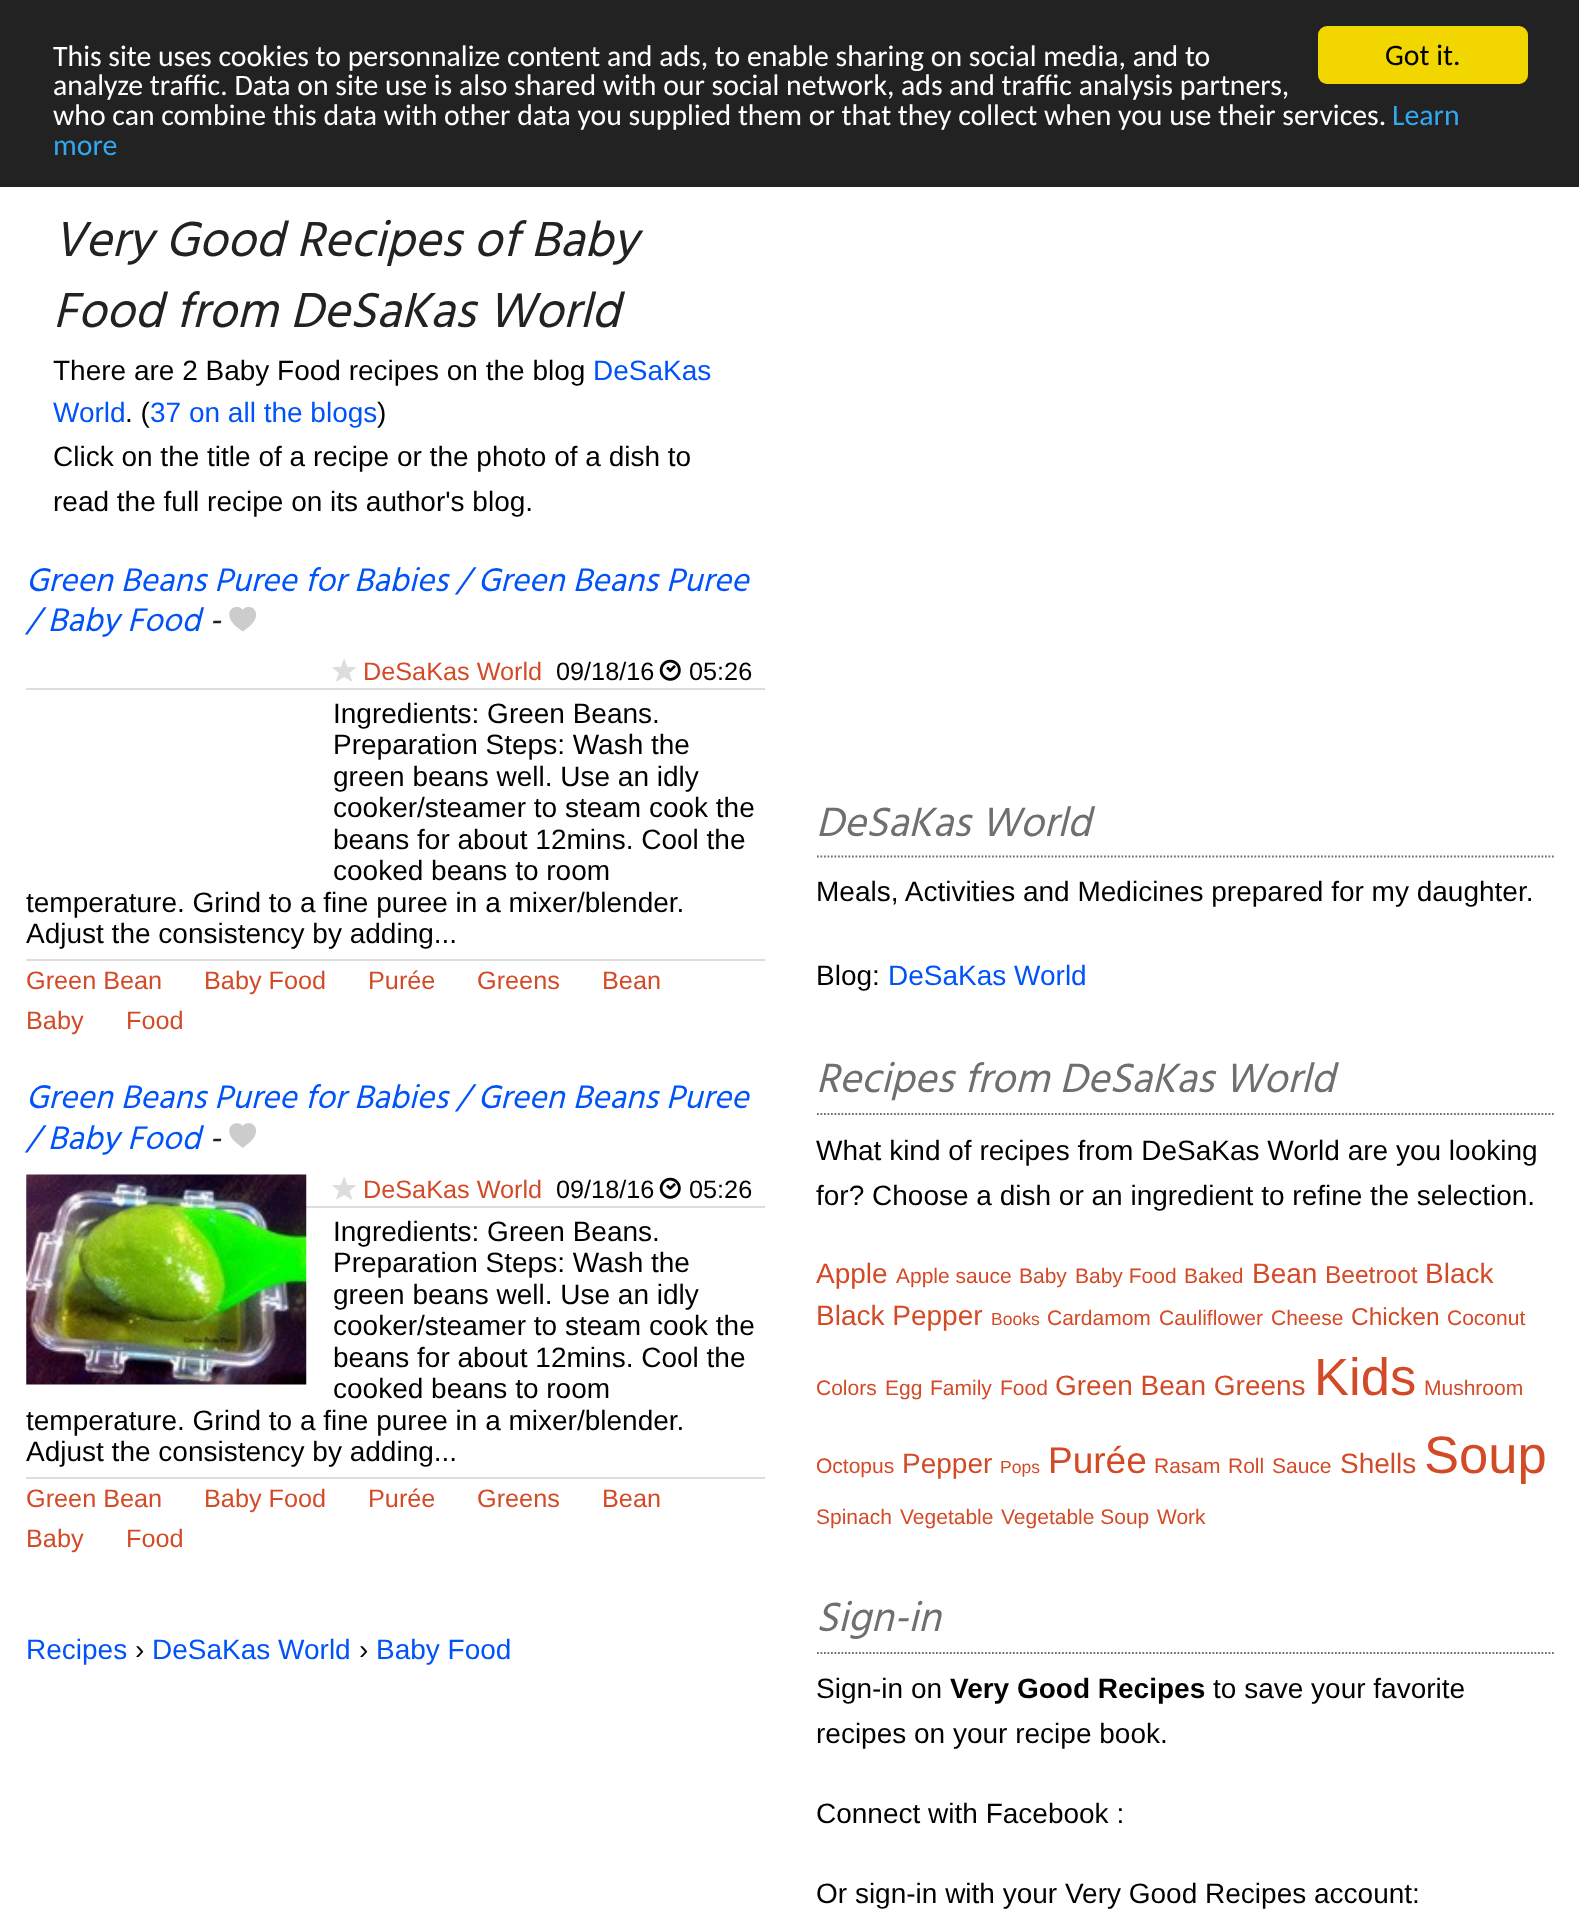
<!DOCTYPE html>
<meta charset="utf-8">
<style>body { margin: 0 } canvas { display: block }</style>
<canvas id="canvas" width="1579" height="1919"></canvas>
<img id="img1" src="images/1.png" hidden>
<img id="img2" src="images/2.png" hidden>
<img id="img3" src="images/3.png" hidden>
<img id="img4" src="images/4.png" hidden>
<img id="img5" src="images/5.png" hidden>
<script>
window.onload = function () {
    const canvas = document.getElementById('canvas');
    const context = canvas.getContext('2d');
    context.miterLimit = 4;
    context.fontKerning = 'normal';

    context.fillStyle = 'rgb(255, 255, 255)';
    context.fillRect(0, 0, 1579, 1919);
    context.fillStyle = 'rgb(34, 34, 34)';
    context.fillRect(0, 0, 1579, 187);
    context.fillStyle = 'rgb(241, 214, 0)';
    context.beginPath();
    context.roundRect(1318, 26, 210, 58, 9);
    context.fill();
    context.drawImage(document.getElementById('img1'), 229, 606, 27, 26);
    context.fillStyle = 'rgb(221, 221, 221)';
    context.fillRect(26, 688, 739, 2);
    context.drawImage(document.getElementById('img2'), 332, 659, 24, 23);
    context.drawImage(document.getElementById('img3'), 659, 659, 22, 22);
    context.fillRect(26, 959, 739, 2);
    context.drawImage(document.getElementById('img4'), 229, 1123, 27, 25);
    context.fillRect(26, 1206, 739, 2);
    context.drawImage(document.getElementById('img5'), 26, 1174, 281, 211);
    context.drawImage(document.getElementById('img2'), 332, 1177, 24, 23);
    context.drawImage(document.getElementById('img3'), 659, 1177, 22, 22);
    context.fillRect(26, 1477, 739, 2);
    context.beginPath();
    context.moveTo(817, 856.5);
    context.lineTo(1554, 856.5);
    context.strokeStyle = 'rgb(111, 111, 111)';
    context.lineWidth = 1.8;
    context.setLineDash([1.75, 1.75]);
    context.stroke();
    context.beginPath();
    context.moveTo(817, 1114);
    context.lineTo(1554, 1114);
    context.stroke();
    context.beginPath();
    context.moveTo(817, 1653);
    context.lineTo(1554, 1653);
    context.stroke();
    context.font = '29.75px Carlito';
    context.fillStyle = 'rgb(0, 0, 0)';
    context.fillText('Got it.', 1385, 65);
    context.fillStyle = 'rgb(255, 255, 255)';
    context.fillText('This site uses cookies to personnalize content and ads, to enable sharing on social media, and to', 53, 66);
    context.fillText('analyze traffic. Data on site use is also shared with our social network, ads and traffic analysis partners,', 53, 95);
    context.fillText('who can combine this data with other data you supplied them or that they collect when you use their services.', 53, 125);
    context.fillStyle = 'rgb(49, 168, 240)';
    context.fillText('Learn', 1392, 125);
    context.fillText('more', 53, 155);
    context.font = 'italic 50.4px Hind';
    context.fillStyle = 'rgb(34, 34, 34)';
    context.fillText('Very Good Recipes of Baby', 53, 256);
    context.fillText('Food from DeSaKas World', 53, 327);
    context.font = '28px Liberation Sans';
    context.fillStyle = 'rgb(0, 0, 0)';
    context.fillText('There are 2 Baby Food recipes on the blog', 53, 380);
    context.fillStyle = 'rgb(0, 83, 249)';
    context.fillText('DeSaKas', 593, 380);
    context.fillText('World', 53, 422);
    context.fillStyle = 'rgb(0, 0, 0)';
    context.fillText('. (', 125, 422);
    context.fillStyle = 'rgb(0, 83, 249)';
    context.fillText('37 on all the blogs', 150, 422);
    context.fillStyle = 'rgb(0, 0, 0)';
    context.fillText(')', 377, 422);
    context.fillText('Click on the title of a recipe or the photo of a dish to', 53, 466);
    context.fillText('read the full recipe on its author\'s blog.', 53, 511);
    context.font = 'italic 33.6px Hind';
    context.fillStyle = 'rgb(0, 83, 249)';
    context.fillText('Green Beans Puree for Babies / Green Beans Puree', 26, 591);
    context.fillText('/ Baby Food', 26, 631);
    context.fillStyle = 'rgb(34, 34, 34)';
    context.fillText('-', 209, 631);
    context.font = '25.25px Liberation Sans';
    context.fillStyle = 'rgb(211, 74, 39)';
    context.fillText('DeSaKas World', 363, 680);
    context.fillStyle = 'rgb(0, 0, 0)';
    context.fillText('09/18/16', 556, 680);
    context.fillText('05:26', 689, 680);
    context.font = '28px Liberation Sans';
    context.fillText('Ingredients: Green Beans.', 333, 723);
    context.fillText('Preparation Steps: Wash the', 333, 754);
    context.fillText('green beans well. Use an idly', 333, 786);
    context.fillText('cooker/steamer to steam cook the', 333, 817);
    context.fillText('beans for about 12mins. Cool the', 333, 849);
    context.fillText('cooked beans to room', 333, 880);
    context.fillText('temperature. Grind to a fine puree in a mixer/blender.', 26, 912);
    context.fillText('Adjust the consistency by adding...', 26, 943);
    context.font = '25.25px Liberation Sans';
    context.fillStyle = 'rgb(211, 74, 39)';
    context.fillText('Green Bean', 26, 989);
    context.fillText('Baby Food', 204, 989);
    context.fillText('Purée', 368, 989);
    context.fillText('Greens', 477, 989);
    context.fillText('Bean', 602, 989);
    context.fillText('Baby', 26, 1029);
    context.fillText('Food', 126, 1029);
    context.font = 'italic 33.6px Hind';
    context.fillStyle = 'rgb(0, 83, 249)';
    context.fillText('Green Beans Puree for Babies / Green Beans Puree', 26, 1108);
    context.fillText('/ Baby Food', 26, 1149);
    context.fillStyle = 'rgb(34, 34, 34)';
    context.fillText('-', 209, 1149);
    context.font = '25.25px Liberation Sans';
    context.fillStyle = 'rgb(211, 74, 39)';
    context.fillText('DeSaKas World', 363, 1198);
    context.fillStyle = 'rgb(0, 0, 0)';
    context.fillText('09/18/16', 556, 1198);
    context.fillText('05:26', 689, 1198);
    context.font = '28px Liberation Sans';
    context.fillText('Ingredients: Green Beans.', 333, 1241);
    context.fillText('Preparation Steps: Wash the', 333, 1272);
    context.fillText('green beans well. Use an idly', 333, 1304);
    context.fillText('cooker/steamer to steam cook the', 333, 1335);
    context.fillText('beans for about 12mins. Cool the', 333, 1367);
    context.fillText('cooked beans to room', 333, 1398);
    context.fillText('temperature. Grind to a fine puree in a mixer/blender.', 26, 1430);
    context.fillText('Adjust the consistency by adding...', 26, 1461);
    context.font = '25.25px Liberation Sans';
    context.fillStyle = 'rgb(211, 74, 39)';
    context.fillText('Green Bean', 26, 1507);
    context.fillText('Baby Food', 204, 1507);
    context.fillText('Purée', 368, 1507);
    context.fillText('Greens', 477, 1507);
    context.fillText('Bean', 602, 1507);
    context.fillText('Baby', 26, 1547);
    context.fillText('Food', 126, 1547);
    context.font = '28px Liberation Sans';
    context.fillStyle = 'rgb(0, 83, 249)';
    context.fillText('Recipes', 26, 1659);
    context.fillStyle = 'rgb(0, 0, 0)';
    context.fillText('›', 135, 1659);
    context.fillStyle = 'rgb(0, 83, 249)';
    context.fillText('DeSaKas World', 152, 1659);
    context.fillStyle = 'rgb(0, 0, 0)';
    context.fillText('›', 359, 1659);
    context.fillStyle = 'rgb(0, 83, 249)';
    context.fillText('Baby Food', 376, 1659);
    context.font = 'italic 42px Hind';
    context.fillStyle = 'rgb(111, 111, 111)';
    context.fillText('DeSaKas World', 816, 836);
    context.font = '28px Liberation Sans';
    context.fillStyle = 'rgb(0, 0, 0)';
    context.fillText('Meals, Activities and Medicines prepared for my daughter.', 816, 901);
    context.fillText('Blog:', 816, 985);
    context.fillStyle = 'rgb(0, 83, 249)';
    context.fillText('DeSaKas World', 888, 985);
    context.font = 'italic 42px Hind';
    context.fillStyle = 'rgb(111, 111, 111)';
    context.fillText('Recipes from DeSaKas World', 816, 1092);
    context.font = '28px Liberation Sans';
    context.fillStyle = 'rgb(0, 0, 0)';
    context.fillText('What kind of recipes from DeSaKas World are you looking', 816, 1160);
    context.fillText('for? Choose a dish or an ingredient to refine the selection.', 816, 1205);
    context.fillStyle = 'rgb(211, 74, 39)';
    context.fillText('Apple', 816, 1283);
    context.font = '21px Liberation Sans';
    context.fillText('Apple sauce', 896, 1283);
    context.fillText('Baby', 1019, 1283);
    context.fillText('Baby Food', 1075, 1283);
    context.fillText('Baked', 1184, 1283);
    context.font = '28px Liberation Sans';
    context.fillText('Bean', 1252, 1283);
    context.font = '24.5px Liberation Sans';
    context.fillText('Beetroot', 1325, 1283);
    context.font = '28px Liberation Sans';
    context.fillText('Black', 1425, 1283);
    context.fillText('Black Pepper', 816, 1325);
    context.font = '17.5px Liberation Sans';
    context.fillText('Books', 991, 1325);
    context.font = '21px Liberation Sans';
    context.fillText('Cardamom', 1047, 1325);
    context.fillText('Cauliflower', 1159, 1325);
    context.fillText('Cheese', 1271, 1325);
    context.font = '24.5px Liberation Sans';
    context.fillText('Chicken', 1351, 1325);
    context.font = '21px Liberation Sans';
    context.fillText('Coconut', 1447, 1325);
    context.fillText('Colors', 816, 1395);
    context.fillText('Egg', 885, 1395);
    context.fillText('Family', 930, 1395);
    context.fillText('Food', 1000, 1395);
    context.font = '28px Liberation Sans';
    context.fillText('Green Bean Greens', 1055, 1395);
    context.font = '52.5px Liberation Sans';
    context.fillText('Kids', 1314, 1395);
    context.font = '21px Liberation Sans';
    context.fillText('Mushroom', 1424, 1395);
    context.fillText('Octopus', 816, 1473);
    context.font = '28px Liberation Sans';
    context.fillText('Pepper', 902, 1473);
    context.font = '17.5px Liberation Sans';
    context.fillText('Pops', 1000, 1473);
    context.font = '37px Liberation Sans';
    context.fillText('Purée', 1048, 1473);
    context.font = '21px Liberation Sans';
    context.fillText('Rasam', 1154, 1473);
    context.fillText('Roll', 1228, 1473);
    context.fillText('Sauce', 1272, 1473);
    context.font = '28px Liberation Sans';
    context.fillText('Shells', 1340, 1473);
    context.font = '52.5px Liberation Sans';
    context.fillText('Soup', 1424, 1473);
    context.font = '21px Liberation Sans';
    context.fillText('Spinach', 816, 1524);
    context.fillText('Vegetable', 900, 1524);
    context.fillText('Vegetable Soup', 1001, 1524);
    context.fillText('Work', 1157, 1524);
    context.font = 'italic 42px Hind';
    context.fillStyle = 'rgb(111, 111, 111)';
    context.fillText('Sign-in', 816, 1631);
    context.font = '28px Liberation Sans';
    context.fillStyle = 'rgb(0, 0, 0)';
    context.fillText('Sign-in on', 816, 1698);
    context.font = 'bold 28px Liberation Sans';
    context.fillText('Very Good Recipes', 950, 1698);
    context.font = '28px Liberation Sans';
    context.fillText('to save your favorite', 1213, 1698);
    context.fillText('recipes on your recipe book.', 816, 1743);
    context.fillText('Connect with Facebook :', 816, 1823);
    context.fillText('Or sign-in with your Very Good Recipes account:', 816, 1903);
};
</script>
